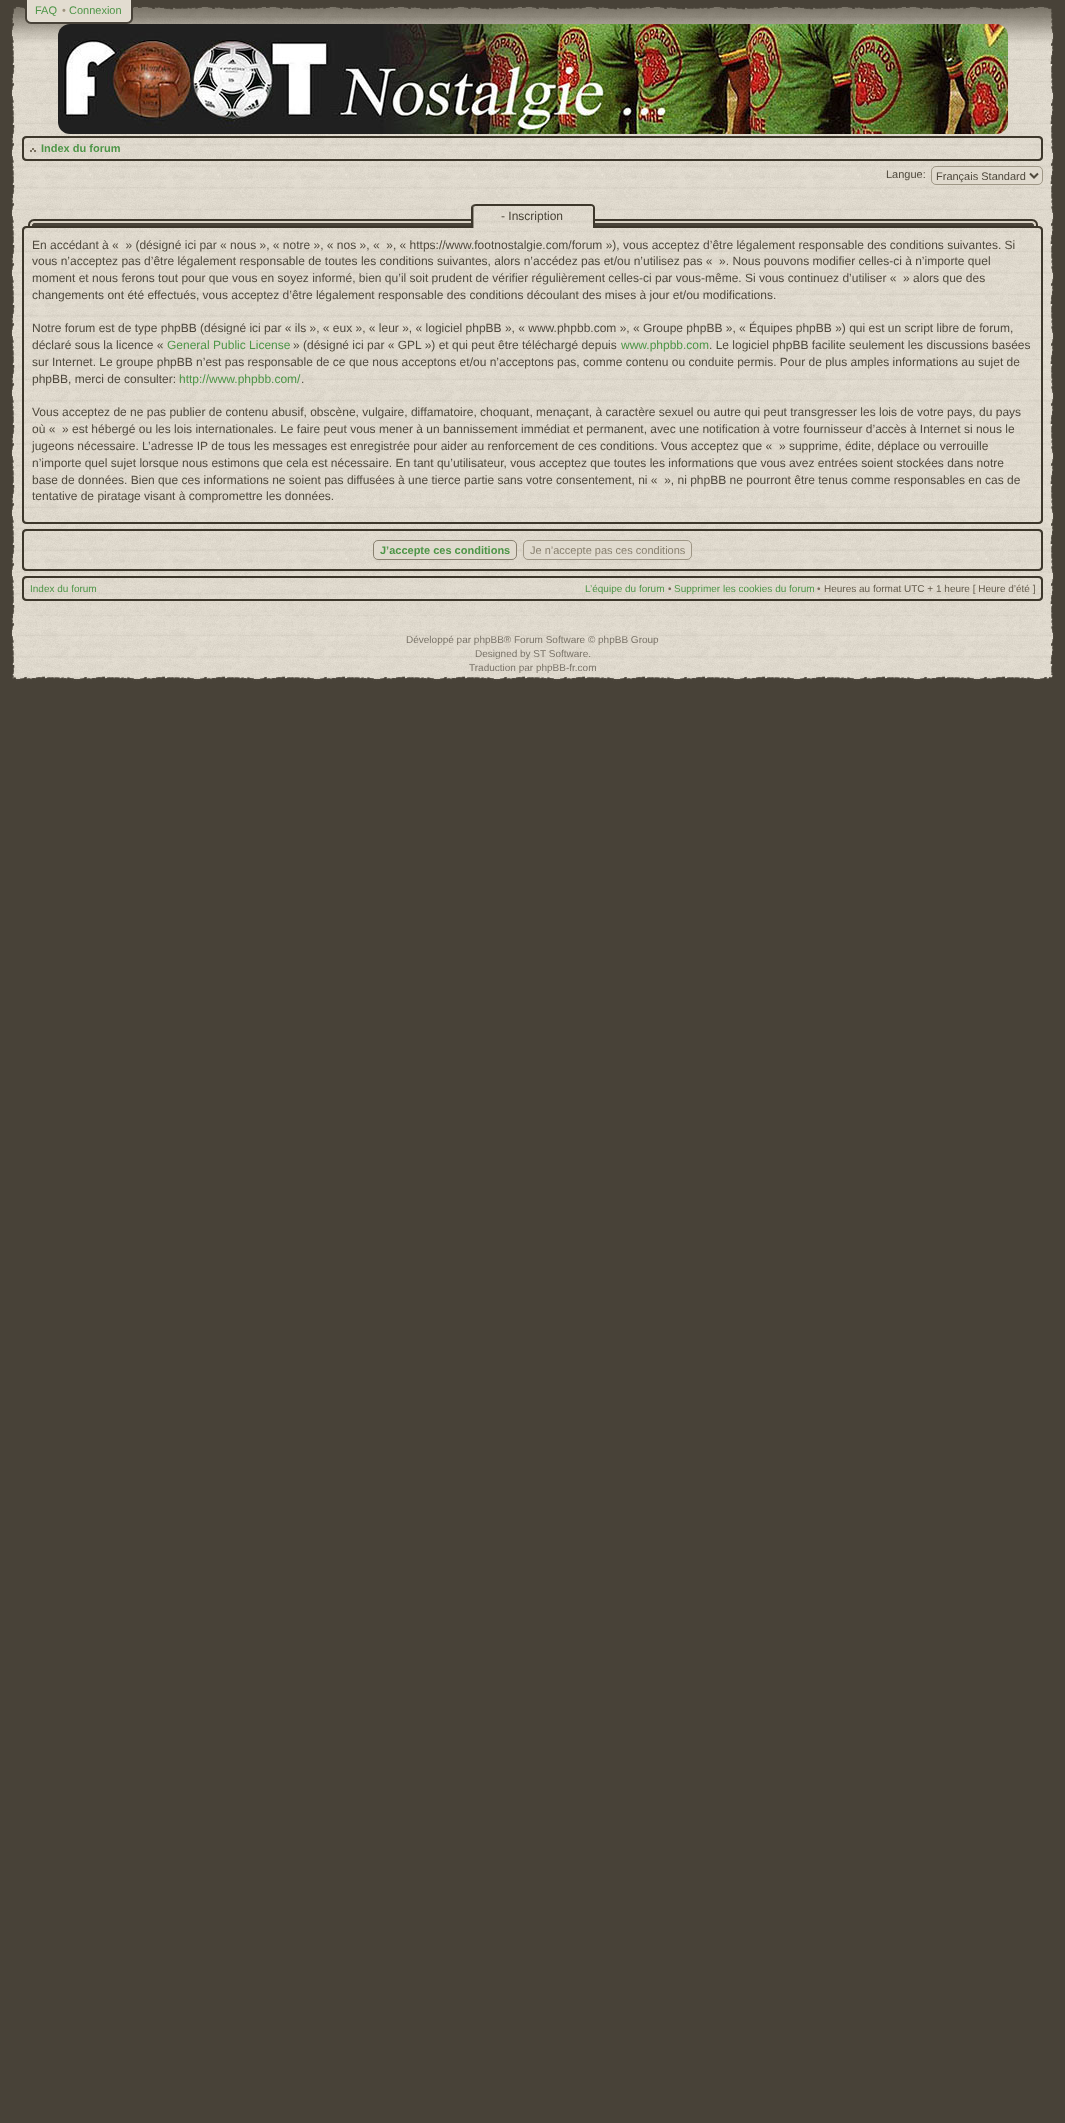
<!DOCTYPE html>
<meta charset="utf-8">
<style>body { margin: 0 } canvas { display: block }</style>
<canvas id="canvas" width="1065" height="2123"></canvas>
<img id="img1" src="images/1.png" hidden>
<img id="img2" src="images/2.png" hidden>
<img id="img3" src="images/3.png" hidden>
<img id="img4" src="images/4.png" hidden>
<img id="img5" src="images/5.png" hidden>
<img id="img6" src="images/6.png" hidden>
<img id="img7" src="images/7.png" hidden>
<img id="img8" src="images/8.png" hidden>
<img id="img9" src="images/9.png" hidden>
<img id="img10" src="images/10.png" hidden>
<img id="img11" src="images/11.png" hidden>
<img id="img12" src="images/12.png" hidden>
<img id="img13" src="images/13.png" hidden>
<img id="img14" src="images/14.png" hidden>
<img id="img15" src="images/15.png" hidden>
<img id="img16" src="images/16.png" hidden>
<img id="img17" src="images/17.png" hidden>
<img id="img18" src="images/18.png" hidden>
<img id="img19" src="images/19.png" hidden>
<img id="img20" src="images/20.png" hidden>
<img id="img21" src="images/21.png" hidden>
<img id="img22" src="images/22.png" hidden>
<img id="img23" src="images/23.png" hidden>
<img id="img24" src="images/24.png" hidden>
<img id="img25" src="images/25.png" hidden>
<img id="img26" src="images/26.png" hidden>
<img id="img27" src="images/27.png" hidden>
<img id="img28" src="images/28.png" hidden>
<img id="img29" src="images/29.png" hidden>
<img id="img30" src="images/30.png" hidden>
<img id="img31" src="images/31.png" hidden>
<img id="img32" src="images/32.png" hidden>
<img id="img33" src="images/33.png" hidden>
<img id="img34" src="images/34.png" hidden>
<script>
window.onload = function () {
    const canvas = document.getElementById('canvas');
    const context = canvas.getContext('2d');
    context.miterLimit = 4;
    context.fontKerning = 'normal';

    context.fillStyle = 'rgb(72, 66, 56)';
    context.fillRect(0, 0, 1065, 2123);
    context.drawImage(document.getElementById('img1'), 12, 44, 1041, 635);
    context.drawImage(document.getElementById('img2'), 10, 47, 6, 628);
    context.drawImage(document.getElementById('img3'), 1050, 60, 5, 615);
    context.drawImage(document.getElementById('img4'), 10, 0, 1045, 44);
    context.drawImage(document.getElementById('img5'), 10, 7, 6, 53);
    context.drawImage(document.getElementById('img6'), 1049, 7, 6, 53);
    context.drawImage(document.getElementById('img7'), 28, 0, 102, 24);
    context.drawImage(document.getElementById('img8'), 25, 0, 6, 24);
    context.drawImage(document.getElementById('img9'), 127, 0, 6, 24);
    context.drawImage(document.getElementById('img10'), 58, 24, 950, 110);
    context.fillStyle = 'rgb(61, 55, 43)';
    context.fillRect(27, 136, 1011, 2);
    context.drawImage(document.getElementById('img11'), 22, 136, 5, 5);
    context.drawImage(document.getElementById('img12'), 1038, 136, 5, 5);
    context.fillRect(22, 141, 2, 15);
    context.fillRect(1041, 141, 2, 15);
    context.drawImage(document.getElementById('img13'), 30, 148, 6, 4);
    context.fillRect(27, 159, 1011, 2);
    context.drawImage(document.getElementById('img14'), 22, 156, 5, 5);
    context.drawImage(document.getElementById('img15'), 1038, 156, 5, 5);
    context.fillStyle = 'rgb(224, 218, 206)';
    context.beginPath();
    context.roundRect(931.5, 166.5, 111, 18, 4.5);
    context.fill();
    context.strokeStyle = 'rgb(158, 150, 133)';
    context.stroke();
    context.beginPath();
    context.moveTo(1030, 173.5);
    context.lineTo(1034, 177.5);
    context.lineTo(1038, 173.5);
    context.strokeStyle = 'rgb(79, 73, 61)';
    context.lineWidth = 2;
    context.stroke();
    context.drawImage(document.getElementById('img16'), 1030, 219, 13, 12);
    context.drawImage(document.getElementById('img17'), 22, 219, 13, 12);
    context.drawImage(document.getElementById('img18'), 35, 219, 995, 9);
    context.drawImage(document.getElementById('img19'), 477, 202, 113, 29);
    context.drawImage(document.getElementById('img20'), 471, 202, 6, 29);
    context.drawImage(document.getElementById('img21'), 590, 202, 5, 29);
    context.fillStyle = 'rgb(61, 55, 43)';
    context.fillRect(22, 231, 2, 288);
    context.fillRect(1041, 231, 2, 288);
    context.fillRect(27, 522, 1011, 2);
    context.drawImage(document.getElementById('img22'), 22, 519, 5, 5);
    context.drawImage(document.getElementById('img23'), 1038, 519, 5, 5);
    context.fillRect(27, 529, 1011, 2);
    context.drawImage(document.getElementById('img24'), 22, 529, 5, 5);
    context.drawImage(document.getElementById('img25'), 1038, 529, 5, 5);
    context.fillRect(22, 534, 2, 32);
    context.fillRect(1041, 534, 2, 32);
    context.fillStyle = 'rgb(224, 218, 206)';
    context.beginPath();
    context.roundRect(373.5, 540.5, 143, 19, 4.5);
    context.fill();
    context.strokeStyle = 'rgb(136, 128, 111)';
    context.lineWidth = 1;
    context.stroke();
    context.beginPath();
    context.roundRect(523.5, 540.5, 168, 19, 4.5);
    context.fill();
    context.strokeStyle = 'rgb(158, 150, 133)';
    context.stroke();
    context.fillStyle = 'rgb(61, 55, 43)';
    context.fillRect(27, 569, 1011, 2);
    context.drawImage(document.getElementById('img26'), 22, 566, 5, 5);
    context.drawImage(document.getElementById('img27'), 1038, 566, 5, 5);
    context.fillRect(27, 576, 1011, 2);
    context.drawImage(document.getElementById('img28'), 22, 576, 5, 5);
    context.drawImage(document.getElementById('img29'), 1038, 576, 5, 5);
    context.fillRect(22, 581, 2, 15);
    context.fillRect(1041, 581, 2, 15);
    context.fillRect(27, 599, 1011, 2);
    context.drawImage(document.getElementById('img30'), 22, 596, 5, 5);
    context.drawImage(document.getElementById('img31'), 1038, 596, 5, 5);
    context.drawImage(document.getElementById('img32'), 16, 676, 1039, 5);
    context.drawImage(document.getElementById('img33'), 10, 675, 6, 6);
    context.drawImage(document.getElementById('img34'), 1049, 675, 6, 5);
    context.font = '11px Liberation Sans';
    context.fillStyle = 'rgb(77, 149, 71)';
    context.fillText('FAQ', 35, 14);
    context.fillStyle = 'rgb(156, 146, 126)';
    context.fillText('•', 62, 14);
    context.fillStyle = 'rgb(77, 149, 71)';
    context.fillText('Connexion', 69, 14);
    context.font = 'bold 11px Liberation Sans';
    context.fillText('Index du forum', 41, 152);
    context.font = '11px Liberation Sans';
    context.fillStyle = 'rgb(79, 73, 61)';
    context.fillText('Langue:', 886, 178);
    context.fillText('Français Standard', 936, 180);
    context.font = '12px Liberation Sans';
    context.fillStyle = 'rgb(73, 67, 55)';
    context.fillText('- Inscription', 501, 220);
    context.fillStyle = 'rgb(79, 73, 61)';
    context.fillText('En accédant à «  » (désigné ici par « nous », « notre », « nos », «  », « https://www.footnostalgie.com/forum »), vous acceptez d’être légalement responsable des conditions suivantes. Si', 32, 249);
    context.fillText('vous n’acceptez pas d’être légalement responsable de toutes les conditions suivantes, alors n’accédez pas et/ou n’utilisez pas «  ». Nous pouvons modifier celles-ci à n’importe quel', 32, 265);
    context.fillText('moment et nous ferons tout pour que vous en soyez informé, bien qu’il soit prudent de vérifier régulièrement celles-ci par vous-même. Si vous continuez d’utiliser «  » alors que des', 32, 282);
    context.fillText('changements ont été effectués, vous acceptez d’être légalement responsable des conditions découlant des mises à jour et/ou modifications.', 32, 299);
    context.fillText('Notre forum est de type phpBB (désigné ici par « ils », « eux », « leur », « logiciel phpBB », « www.phpbb.com », « Groupe phpBB », « Équipes phpBB ») qui est un script libre de forum,', 32, 332);
    context.fillText('déclaré sous la licence «', 32, 349);
    context.fillStyle = 'rgb(77, 149, 71)';
    context.fillText('General Public License', 167, 349);
    context.fillStyle = 'rgb(79, 73, 61)';
    context.fillText('» (désigné ici par « GPL ») et qui peut être téléchargé depuis', 293, 349);
    context.fillStyle = 'rgb(77, 149, 71)';
    context.fillText('www.phpbb.com', 621, 349);
    context.fillStyle = 'rgb(79, 73, 61)';
    context.fillText('. Le logiciel phpBB facilite seulement les discussions basées', 709, 349);
    context.fillText('sur Internet. Le groupe phpBB n’est pas responsable de ce que nous acceptons et/ou n’acceptons pas, comme contenu ou conduite permis. Pour de plus amples informations au sujet de', 32, 366);
    context.fillText('phpBB, merci de consulter:', 32, 383);
    context.fillStyle = 'rgb(77, 149, 71)';
    context.fillText('http://www.phpbb.com/', 179, 383);
    context.fillStyle = 'rgb(79, 73, 61)';
    context.fillText('.', 301, 383);
    context.fillText('Vous acceptez de ne pas publier de contenu abusif, obscène, vulgaire, diffamatoire, choquant, menaçant, à caractère sexuel ou autre qui peut transgresser les lois de votre pays, du pays', 32, 416);
    context.fillText('où «  » est hébergé ou les lois internationales. Le faire peut vous mener à un bannissement immédiat et permanent, avec une notification à votre fournisseur d’accès à Internet si nous le', 32, 433);
    context.fillText('jugeons nécessaire. L’adresse IP de tous les messages est enregistrée pour aider au renforcement de ces conditions. Vous acceptez que «  » supprime, édite, déplace ou verrouille', 32, 450);
    context.fillText('n’importe quel sujet lorsque nous estimons que cela est nécessaire. En tant qu’utilisateur, vous acceptez que toutes les informations que vous avez entrées soient stockées dans notre', 32, 467);
    context.fillText('base de données. Bien que ces informations ne soient pas diffusées à une tierce partie sans votre consentement, ni «  », ni phpBB ne pourront être tenus comme responsables en cas de', 32, 484);
    context.fillText('tentative de piratage visant à compromettre les données.', 32, 500);
    context.font = 'bold 11px Liberation Sans';
    context.fillStyle = 'rgb(77, 149, 71)';
    context.fillText('J’accepte ces conditions', 380, 554);
    context.font = '11px Liberation Sans';
    context.fillStyle = 'rgb(136, 128, 111)';
    context.fillText('Je n’accepte pas ces conditions', 530, 554);
    context.font = '10px Liberation Sans';
    context.fillStyle = 'rgb(77, 149, 71)';
    context.fillText('Index du forum', 30, 592);
    context.fillText('L’équipe du forum', 585, 592);
    context.fillStyle = 'rgb(120, 111, 94)';
    context.fillText('•', 668, 592);
    context.fillStyle = 'rgb(77, 149, 71)';
    context.fillText('Supprimer les cookies du forum', 674, 592);
    context.fillStyle = 'rgb(120, 111, 94)';
    context.fillText('•', 817, 592);
    context.fillStyle = 'rgb(99, 91, 75)';
    context.fillText('Heures au format UTC + 1 heure [ Heure d’été ]', 824, 592);
    context.fillStyle = 'rgb(121, 115, 104)';
    context.fillText('Développé par phpBB® Forum Software © phpBB Group', 406, 643);
    context.fillText('Designed by ST Software.', 475, 657);
    context.fillText('Traduction par phpBB-fr.com', 469, 671);
};
</script>
